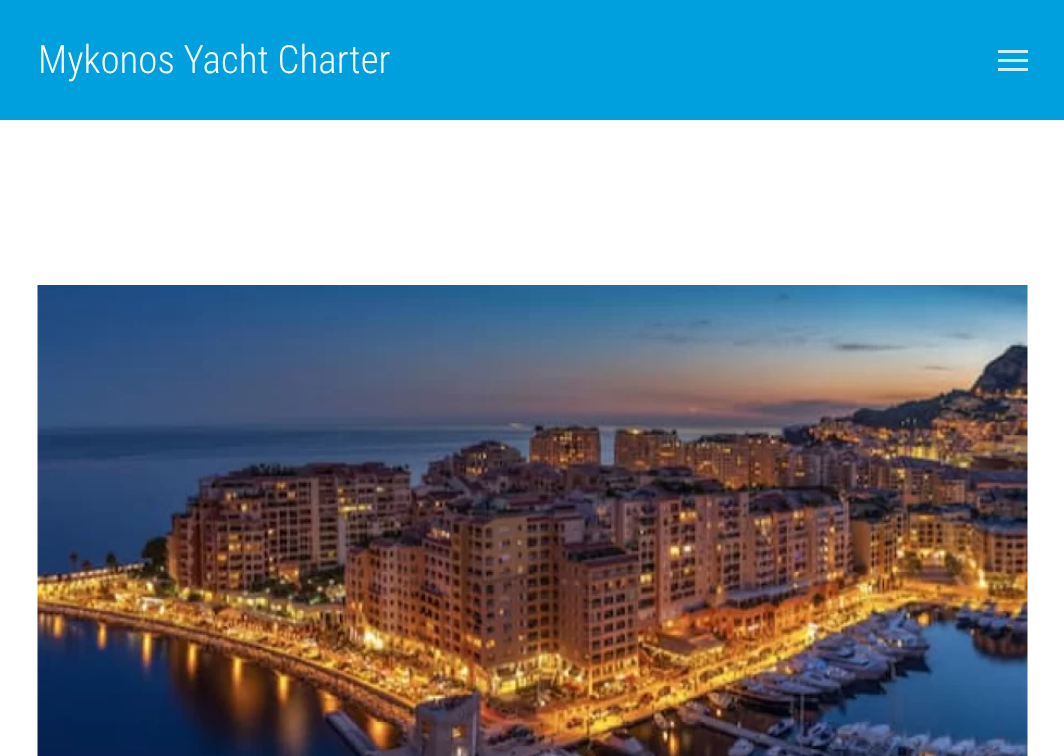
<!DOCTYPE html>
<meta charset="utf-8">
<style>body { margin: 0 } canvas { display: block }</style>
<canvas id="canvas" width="1064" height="756"></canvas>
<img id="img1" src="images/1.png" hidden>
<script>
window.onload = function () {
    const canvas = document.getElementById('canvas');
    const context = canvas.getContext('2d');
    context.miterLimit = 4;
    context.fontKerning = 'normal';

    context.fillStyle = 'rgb(255, 255, 255)';
    context.fillRect(0, 0, 1064, 756);
    context.fillStyle = 'rgb(0, 160, 222)';
    context.fillRect(0, 0, 1064, 120);
    context.fillStyle = 'rgb(204, 236, 248)';
    context.fillRect(998, 50, 30, 3);
    context.fillRect(998, 59, 30, 3);
    context.fillRect(998, 68, 30, 3);
    context.drawImage(document.getElementById('img1'), 37, 285, 991, 471);
    context.font = '300 39px Roboto Condensed';
    context.fillStyle = 'rgb(255, 255, 255)';
    context.fillText('Mykonos Yacht Charter', 38, 73);
};
</script>
